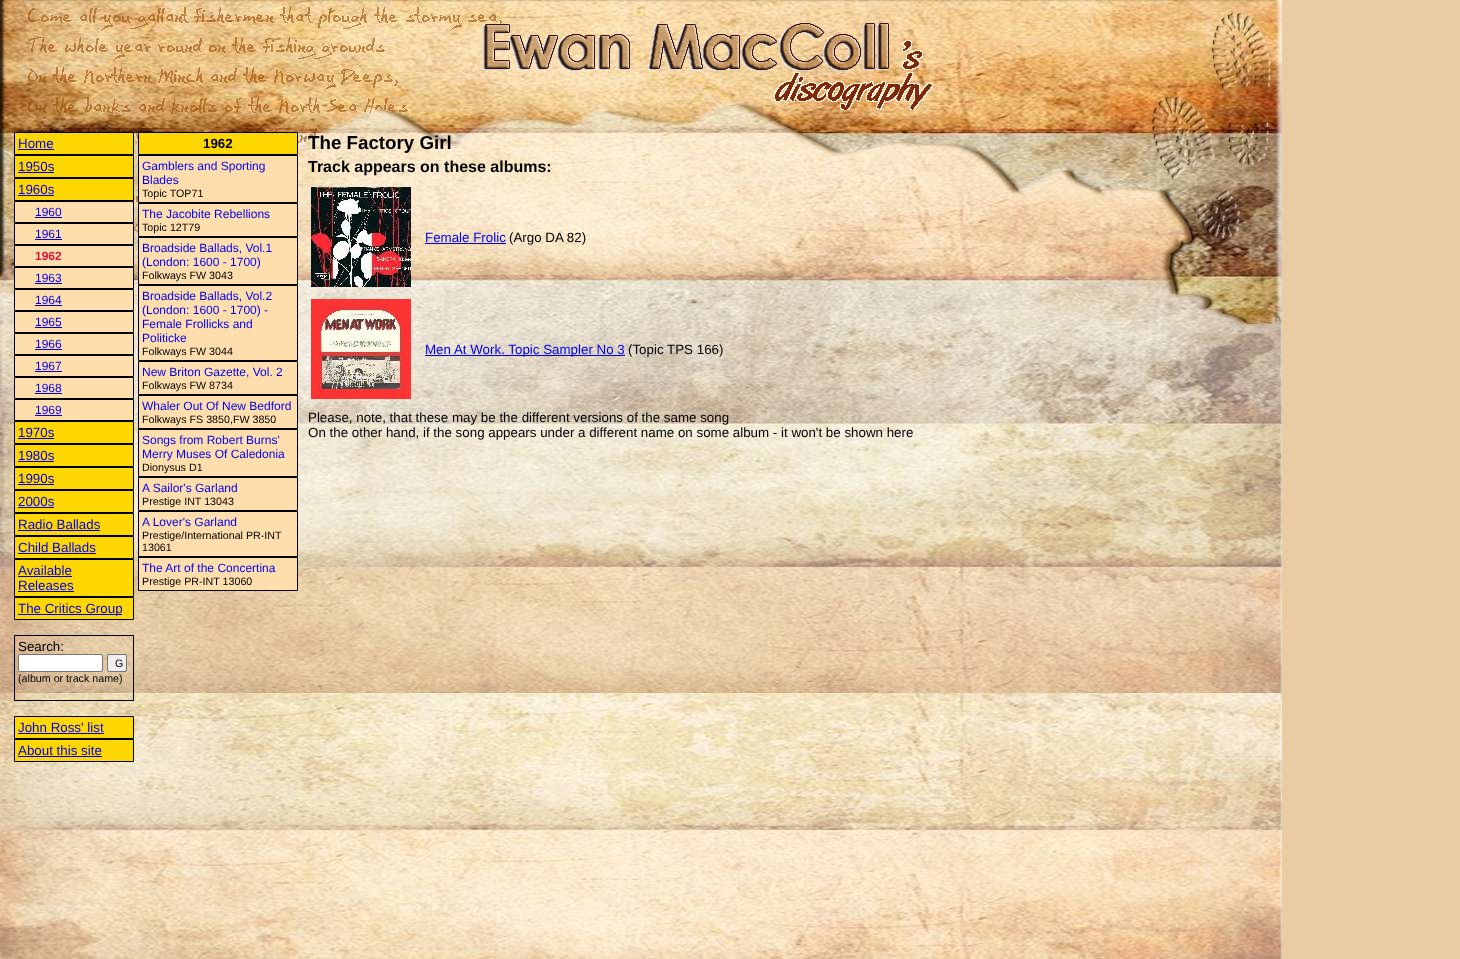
<!DOCTYPE html>
<meta charset="utf-8">
<style>body { margin: 0 } canvas { display: block }</style>
<canvas id="canvas" width="1460" height="959"></canvas>
<img id="img1" src="images/1.png" hidden>
<img id="img2" src="images/2.png" hidden>
<img id="img3" src="images/3.png" hidden>
<img id="img4" src="images/4.png" hidden>
<script>
window.onload = function () {
    const canvas = document.getElementById('canvas');
    const context = canvas.getContext('2d');
    context.miterLimit = 4;
    context.fontKerning = 'normal';

    context.fillStyle = 'rgb(233, 204, 164)';
    context.fillRect(0, 0, 1460, 959);
    context.drawImage(document.getElementById('img1'), 0, 0, 1282, 959);
    context.drawImage(document.getElementById('img2'), 483, 23, 450, 87);
    context.fillStyle = 'rgb(255, 215, 0)';
    context.beginPath();
    context.rect(14.5, 132.5, 119, 22);
    context.fill();
    context.strokeStyle = 'rgb(0, 0, 0)';
    context.stroke();
    context.fillStyle = 'rgb(0, 0, 238)';
    context.fillRect(18, 149, 36, 1);
    context.fillStyle = 'rgb(255, 215, 0)';
    context.beginPath();
    context.rect(14.5, 155.5, 119, 22);
    context.fill();
    context.stroke();
    context.fillStyle = 'rgb(0, 0, 238)';
    context.fillRect(18, 172, 36, 1);
    context.fillStyle = 'rgb(255, 215, 0)';
    context.beginPath();
    context.rect(14.5, 178.5, 119, 22);
    context.fill();
    context.stroke();
    context.fillStyle = 'rgb(0, 0, 238)';
    context.fillRect(18, 195, 36, 1);
    context.fillStyle = 'rgb(255, 222, 173)';
    context.beginPath();
    context.rect(14.5, 201.5, 119, 21);
    context.fill();
    context.stroke();
    context.fillStyle = 'rgb(0, 0, 238)';
    context.fillRect(35, 217, 27, 1);
    context.fillStyle = 'rgb(255, 222, 173)';
    context.beginPath();
    context.rect(14.5, 223.5, 119, 21);
    context.fill();
    context.stroke();
    context.fillStyle = 'rgb(0, 0, 238)';
    context.fillRect(35, 239, 27, 1);
    context.fillStyle = 'rgb(255, 222, 173)';
    context.beginPath();
    context.rect(14.5, 245.5, 119, 21);
    context.fill();
    context.stroke();
    context.beginPath();
    context.rect(14.5, 267.5, 119, 21);
    context.fill();
    context.stroke();
    context.fillStyle = 'rgb(0, 0, 238)';
    context.fillRect(35, 283, 27, 1);
    context.fillStyle = 'rgb(255, 222, 173)';
    context.beginPath();
    context.rect(14.5, 289.5, 119, 21);
    context.fill();
    context.stroke();
    context.fillStyle = 'rgb(0, 0, 238)';
    context.fillRect(35, 305, 27, 1);
    context.fillStyle = 'rgb(255, 222, 173)';
    context.beginPath();
    context.rect(14.5, 311.5, 119, 21);
    context.fill();
    context.stroke();
    context.fillStyle = 'rgb(0, 0, 238)';
    context.fillRect(35, 327, 27, 1);
    context.fillStyle = 'rgb(255, 222, 173)';
    context.beginPath();
    context.rect(14.5, 333.5, 119, 21);
    context.fill();
    context.stroke();
    context.fillStyle = 'rgb(0, 0, 238)';
    context.fillRect(35, 349, 27, 1);
    context.fillStyle = 'rgb(255, 222, 173)';
    context.beginPath();
    context.rect(14.5, 355.5, 119, 21);
    context.fill();
    context.stroke();
    context.fillStyle = 'rgb(0, 0, 238)';
    context.fillRect(35, 371, 27, 1);
    context.fillStyle = 'rgb(255, 222, 173)';
    context.beginPath();
    context.rect(14.5, 377.5, 119, 21);
    context.fill();
    context.stroke();
    context.fillStyle = 'rgb(0, 0, 238)';
    context.fillRect(35, 393, 27, 1);
    context.fillStyle = 'rgb(255, 222, 173)';
    context.beginPath();
    context.rect(14.5, 399.5, 119, 21);
    context.fill();
    context.stroke();
    context.fillStyle = 'rgb(0, 0, 238)';
    context.fillRect(35, 415, 27, 1);
    context.fillStyle = 'rgb(255, 215, 0)';
    context.beginPath();
    context.rect(14.5, 421.5, 119, 22);
    context.fill();
    context.stroke();
    context.fillStyle = 'rgb(0, 0, 238)';
    context.fillRect(18, 438, 36, 1);
    context.fillStyle = 'rgb(255, 215, 0)';
    context.beginPath();
    context.rect(14.5, 444.5, 119, 22);
    context.fill();
    context.stroke();
    context.fillStyle = 'rgb(0, 0, 238)';
    context.fillRect(18, 461, 36, 1);
    context.fillStyle = 'rgb(255, 215, 0)';
    context.beginPath();
    context.rect(14.5, 467.5, 119, 22);
    context.fill();
    context.stroke();
    context.fillStyle = 'rgb(0, 0, 238)';
    context.fillRect(18, 484, 36, 1);
    context.fillStyle = 'rgb(255, 215, 0)';
    context.beginPath();
    context.rect(14.5, 490.5, 119, 22);
    context.fill();
    context.stroke();
    context.fillStyle = 'rgb(0, 0, 238)';
    context.fillRect(18, 507, 36, 1);
    context.fillStyle = 'rgb(255, 215, 0)';
    context.beginPath();
    context.rect(14.5, 513.5, 119, 22);
    context.fill();
    context.stroke();
    context.fillStyle = 'rgb(0, 0, 238)';
    context.fillRect(18, 530, 82, 1);
    context.fillStyle = 'rgb(255, 215, 0)';
    context.beginPath();
    context.rect(14.5, 536.5, 119, 22);
    context.fill();
    context.stroke();
    context.fillStyle = 'rgb(0, 0, 238)';
    context.fillRect(18, 553, 78, 1);
    context.fillStyle = 'rgb(255, 215, 0)';
    context.beginPath();
    context.rect(14.5, 559.5, 119, 37);
    context.fill();
    context.stroke();
    context.fillStyle = 'rgb(0, 0, 238)';
    context.fillRect(18, 576, 54, 1);
    context.fillRect(18, 591, 56, 1);
    context.fillStyle = 'rgb(255, 215, 0)';
    context.beginPath();
    context.rect(14.5, 597.5, 119, 22);
    context.fill();
    context.stroke();
    context.fillStyle = 'rgb(0, 0, 238)';
    context.fillRect(18, 614, 104, 1);
    context.strokeRect(14.5, 635.5, 119, 65);
    context.fillStyle = 'rgb(255, 255, 255)';
    context.beginPath();
    context.roundRect(18.5, 654.5, 84, 17, 1.5);
    context.fill();
    context.strokeStyle = 'rgb(118, 118, 118)';
    context.stroke();
    context.fillStyle = 'rgb(239, 239, 239)';
    context.beginPath();
    context.roundRect(107.5, 654.5, 19, 17, 1.5);
    context.fill();
    context.stroke();
    context.fillStyle = 'rgb(255, 215, 0)';
    context.beginPath();
    context.rect(14.5, 716.5, 119, 22);
    context.fill();
    context.strokeStyle = 'rgb(0, 0, 0)';
    context.stroke();
    context.fillStyle = 'rgb(0, 0, 238)';
    context.fillRect(18, 733, 86, 1);
    context.fillStyle = 'rgb(255, 215, 0)';
    context.beginPath();
    context.rect(14.5, 739.5, 119, 22);
    context.fill();
    context.stroke();
    context.fillStyle = 'rgb(0, 0, 238)';
    context.fillRect(18, 756, 84, 1);
    context.fillStyle = 'rgb(255, 215, 0)';
    context.beginPath();
    context.rect(138.5, 132.5, 159, 22);
    context.fill();
    context.stroke();
    context.fillStyle = 'rgb(255, 222, 173)';
    context.beginPath();
    context.rect(138.5, 155.5, 159, 47);
    context.fill();
    context.stroke();
    context.beginPath();
    context.rect(138.5, 203.5, 159, 33);
    context.fill();
    context.stroke();
    context.beginPath();
    context.rect(138.5, 237.5, 159, 47);
    context.fill();
    context.stroke();
    context.beginPath();
    context.rect(138.5, 285.5, 159, 75);
    context.fill();
    context.stroke();
    context.beginPath();
    context.rect(138.5, 361.5, 159, 33);
    context.fill();
    context.stroke();
    context.beginPath();
    context.rect(138.5, 395.5, 159, 33);
    context.fill();
    context.stroke();
    context.beginPath();
    context.rect(138.5, 429.5, 159, 47);
    context.fill();
    context.stroke();
    context.beginPath();
    context.rect(138.5, 477.5, 159, 33);
    context.fill();
    context.stroke();
    context.beginPath();
    context.rect(138.5, 511.5, 159, 45);
    context.fill();
    context.stroke();
    context.beginPath();
    context.rect(138.5, 557.5, 159, 33);
    context.fill();
    context.stroke();
    context.drawImage(document.getElementById('img3'), 311, 187, 100, 100);
    context.fillStyle = 'rgb(0, 0, 238)';
    context.fillRect(425, 243, 81, 1);
    context.drawImage(document.getElementById('img4'), 311, 299, 100, 100);
    context.fillRect(425, 355, 200, 1);
    context.font = '13.35px Liberation Sans';
    context.fillText('Home', 18, 148);
    context.fillText('1950s', 18, 171);
    context.fillText('1960s', 18, 194);
    context.font = '12px Liberation Sans';
    context.fillText('1960', 35, 216);
    context.fillText('1961', 35, 238);
    context.font = 'bold 12px Liberation Sans';
    context.fillStyle = 'rgb(220, 20, 60)';
    context.fillText('1962', 35, 260);
    context.font = '12px Liberation Sans';
    context.fillStyle = 'rgb(0, 0, 238)';
    context.fillText('1963', 35, 282);
    context.fillText('1964', 35, 304);
    context.fillText('1965', 35, 326);
    context.fillText('1966', 35, 348);
    context.fillText('1967', 35, 370);
    context.fillText('1968', 35, 392);
    context.fillText('1969', 35, 414);
    context.font = '13.35px Liberation Sans';
    context.fillText('1970s', 18, 437);
    context.fillText('1980s', 18, 460);
    context.fillText('1990s', 18, 483);
    context.fillText('2000s', 18, 506);
    context.fillText('Radio Ballads', 18, 529);
    context.fillText('Child Ballads', 18, 552);
    context.fillText('Available', 18, 575);
    context.fillText('Releases', 18, 590);
    context.fillText('The Critics Group', 18, 613);
    context.fillStyle = 'rgb(0, 0, 0)';
    context.fillText('Search:', 18, 651);
    context.font = '10.7px Liberation Sans';
    context.fillText('G', 115, 667);
    context.fillText('(album or track name)', 18, 682);
    context.font = '13.35px Liberation Sans';
    context.fillStyle = 'rgb(0, 0, 238)';
    context.fillText('John Ross\' list', 18, 732);
    context.fillText('About this site', 18, 755);
    context.font = 'bold 13.35px Liberation Sans';
    context.fillStyle = 'rgb(0, 0, 0)';
    context.fillText('1962', 203, 148);
    context.font = '12px Liberation Sans';
    context.fillStyle = 'rgb(0, 0, 238)';
    context.fillText('Gamblers and Sporting', 142, 170);
    context.fillText('Blades', 142, 184);
    context.font = '10.7px Liberation Sans';
    context.fillStyle = 'rgb(0, 0, 0)';
    context.fillText('Topic TOP71', 142, 197);
    context.font = '12px Liberation Sans';
    context.fillStyle = 'rgb(0, 0, 238)';
    context.fillText('The Jacobite Rebellions', 142, 218);
    context.font = '10.7px Liberation Sans';
    context.fillStyle = 'rgb(0, 0, 0)';
    context.fillText('Topic 12T79', 142, 231);
    context.font = '12px Liberation Sans';
    context.fillStyle = 'rgb(0, 0, 238)';
    context.fillText('Broadside Ballads, Vol.1', 142, 252);
    context.fillText('(London: 1600 - 1700)', 142, 266);
    context.font = '10.7px Liberation Sans';
    context.fillStyle = 'rgb(0, 0, 0)';
    context.fillText('Folkways FW 3043', 142, 279);
    context.font = '12px Liberation Sans';
    context.fillStyle = 'rgb(0, 0, 238)';
    context.fillText('Broadside Ballads, Vol.2', 142, 300);
    context.fillText('(London: 1600 - 1700) -', 142, 314);
    context.fillText('Female Frollicks and', 142, 328);
    context.fillText('Politicke', 142, 342);
    context.font = '10.7px Liberation Sans';
    context.fillStyle = 'rgb(0, 0, 0)';
    context.fillText('Folkways FW 3044', 142, 355);
    context.font = '12px Liberation Sans';
    context.fillStyle = 'rgb(0, 0, 238)';
    context.fillText('New Briton Gazette, Vol. 2', 142, 376);
    context.font = '10.7px Liberation Sans';
    context.fillStyle = 'rgb(0, 0, 0)';
    context.fillText('Folkways FW 8734', 142, 389);
    context.font = '12px Liberation Sans';
    context.fillStyle = 'rgb(0, 0, 238)';
    context.fillText('Whaler Out Of New Bedford', 142, 410);
    context.font = '10.7px Liberation Sans';
    context.fillStyle = 'rgb(0, 0, 0)';
    context.fillText('Folkways FS 3850,FW 3850', 142, 423);
    context.font = '12px Liberation Sans';
    context.fillStyle = 'rgb(0, 0, 238)';
    context.fillText('Songs from Robert Burns\'', 142, 444);
    context.fillText('Merry Muses Of Caledonia', 142, 458);
    context.font = '10.7px Liberation Sans';
    context.fillStyle = 'rgb(0, 0, 0)';
    context.fillText('Dionysus D1', 142, 471);
    context.font = '12px Liberation Sans';
    context.fillStyle = 'rgb(0, 0, 238)';
    context.fillText('A Sailor\'s Garland', 142, 492);
    context.font = '10.7px Liberation Sans';
    context.fillStyle = 'rgb(0, 0, 0)';
    context.fillText('Prestige INT 13043', 142, 505);
    context.font = '12px Liberation Sans';
    context.fillStyle = 'rgb(0, 0, 238)';
    context.fillText('A Lover\'s Garland', 142, 526);
    context.font = '10.7px Liberation Sans';
    context.fillStyle = 'rgb(0, 0, 0)';
    context.fillText('Prestige/International PR-INT', 142, 539);
    context.fillText('13061', 142, 551);
    context.font = '12px Liberation Sans';
    context.fillStyle = 'rgb(0, 0, 238)';
    context.fillText('The Art of the Concertina', 142, 572);
    context.font = '10.7px Liberation Sans';
    context.fillStyle = 'rgb(0, 0, 0)';
    context.fillText('Prestige PR-INT 13060', 142, 585);
    context.font = 'bold 18.75px Liberation Sans';
    context.fillText('The Factory Girl', 308, 149);
    context.font = 'bold 16px Liberation Sans';
    context.fillText('Track appears on these albums:', 308, 172);
    context.font = '13.35px Liberation Sans';
    context.fillStyle = 'rgb(0, 0, 238)';
    context.fillText('Female Frolic', 425, 242);
    context.fillStyle = 'rgb(0, 0, 0)';
    context.fillText('(Argo DA 82)', 509, 242);
    context.fillStyle = 'rgb(0, 0, 238)';
    context.fillText('Men At Work. Topic Sampler No 3', 425, 354);
    context.fillStyle = 'rgb(0, 0, 0)';
    context.fillText('(Topic TPS 166)', 628, 354);
    context.fillText('Please, note, that these may be the different versions of the same song', 308, 422);
    context.fillText('On the other hand, if the song appears under a different name on some album - it won\'t be shown here', 308, 437);
};
</script>
